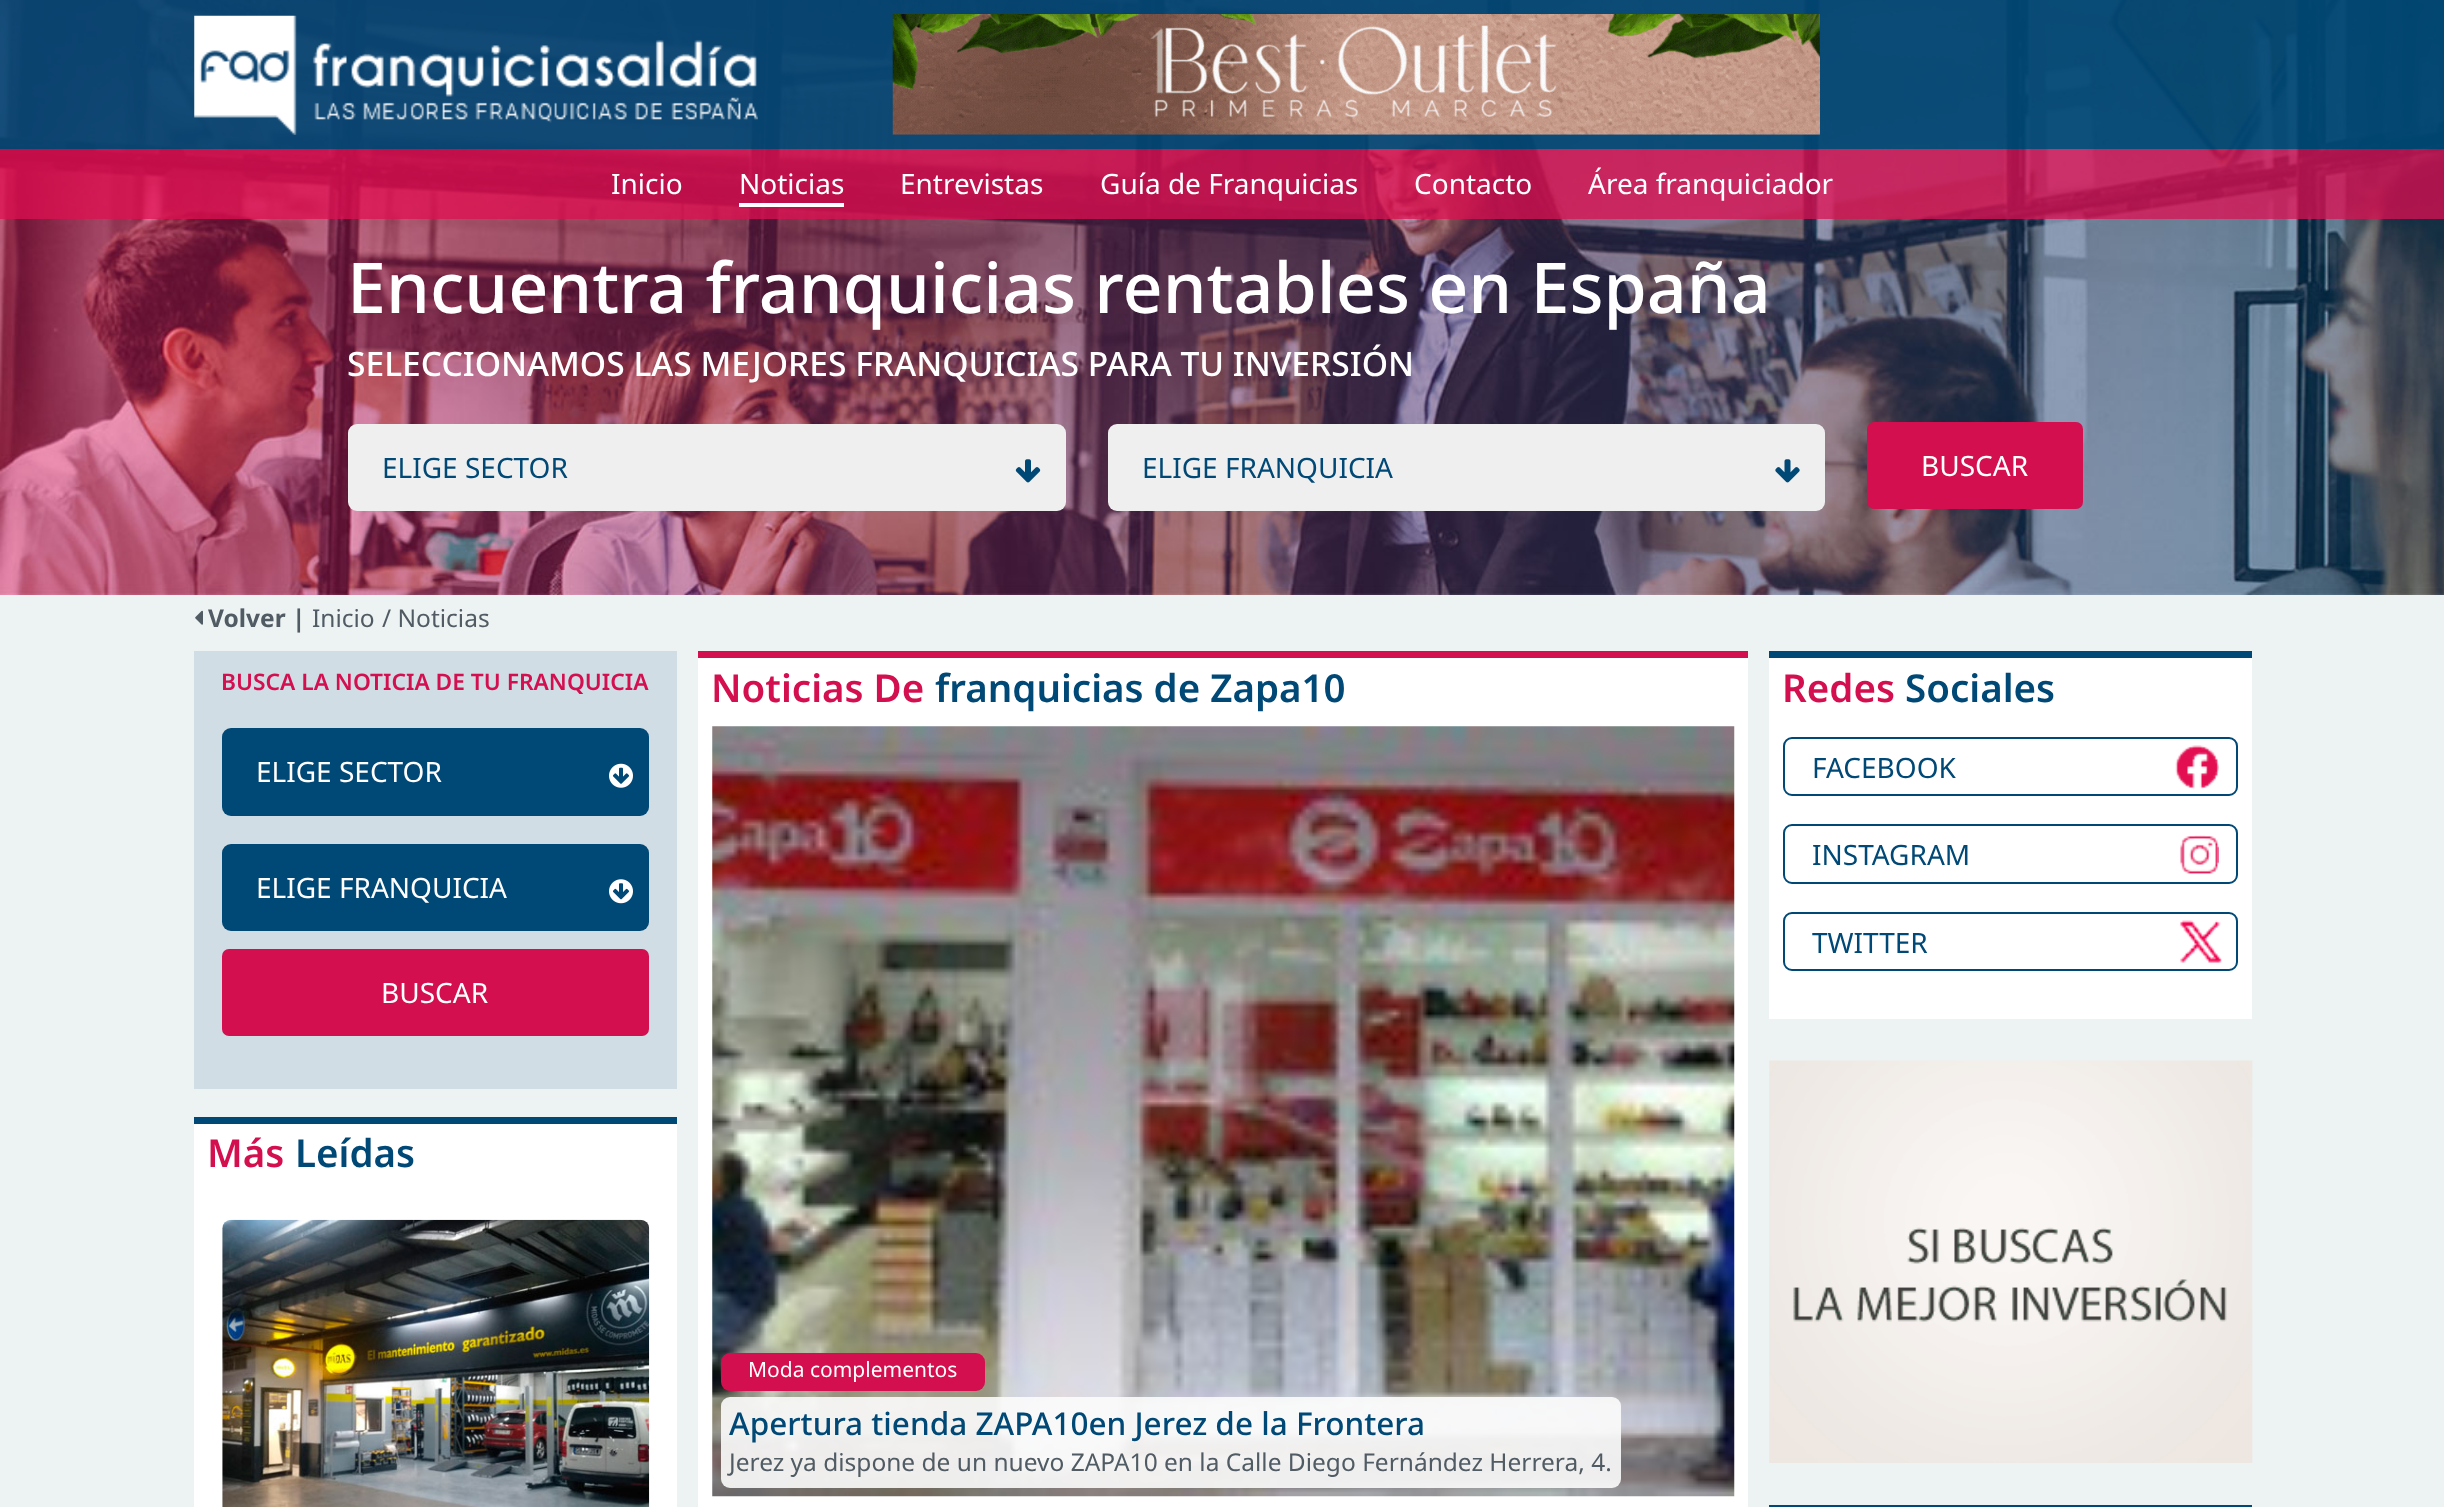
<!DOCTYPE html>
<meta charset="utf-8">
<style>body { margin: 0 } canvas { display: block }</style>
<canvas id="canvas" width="2444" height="1507"></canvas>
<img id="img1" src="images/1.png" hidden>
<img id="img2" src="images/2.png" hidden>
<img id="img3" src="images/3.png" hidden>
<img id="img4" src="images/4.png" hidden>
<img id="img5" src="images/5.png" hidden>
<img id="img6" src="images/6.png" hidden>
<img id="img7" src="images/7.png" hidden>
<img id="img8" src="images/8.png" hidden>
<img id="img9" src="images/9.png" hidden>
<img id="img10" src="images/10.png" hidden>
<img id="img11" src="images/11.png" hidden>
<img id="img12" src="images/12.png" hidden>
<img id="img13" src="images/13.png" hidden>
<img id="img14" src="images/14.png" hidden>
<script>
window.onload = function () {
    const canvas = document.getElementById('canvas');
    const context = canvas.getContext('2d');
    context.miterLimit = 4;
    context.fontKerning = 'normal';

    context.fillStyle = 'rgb(255, 255, 255)';
    context.fillRect(0, 0, 2444, 1507);
    context.drawImage(document.getElementById('img1'), 0, 0, 2444, 595);
    context.fillStyle = 'rgba(0, 72, 117, 0.9)';
    context.fillRect(0, 0, 2444, 149);
    context.drawImage(document.getElementById('img2'), 194, 15, 564, 120);
    context.drawImage(document.getElementById('img3'), 892, 14, 928, 121);
    context.fillStyle = 'rgba(227, 13, 82, 0.75)';
    context.fillRect(0, 149, 2444, 70);
    context.fillStyle = 'rgb(255, 255, 255)';
    context.fillRect(739, 203, 105, 4);
    context.fillStyle = 'rgb(239, 239, 239)';
    context.beginPath();
    context.roundRect(348, 424, 718, 87, 9);
    context.fill();
    context.drawImage(document.getElementById('img4'), 1015, 459, 26, 24);
    context.beginPath();
    context.roundRect(1108, 424, 717, 87, 9);
    context.fill();
    context.drawImage(document.getElementById('img5'), 1775, 459, 25, 24);
    context.fillStyle = 'rgb(212, 15, 79)';
    context.beginPath();
    context.roundRect(1867, 422, 216, 87, 7);
    context.fill();
    context.fillStyle = 'rgb(237, 242, 243)';
    context.fillRect(0, 595, 2444, 912);
    context.drawImage(document.getElementById('img6'), 195, 610, 8, 15);
    context.fillStyle = 'rgb(208, 221, 228)';
    context.fillRect(194, 651, 483, 438);
    context.fillStyle = 'rgb(0, 72, 117)';
    context.beginPath();
    context.roundRect(222, 728, 427, 88, 9);
    context.fill();
    context.drawImage(document.getElementById('img7'), 609, 763, 24, 25);
    context.beginPath();
    context.roundRect(222, 844, 427, 87, 9);
    context.fill();
    context.drawImage(document.getElementById('img8'), 609, 879, 24, 25);
    context.fillStyle = 'rgb(212, 15, 79)';
    context.beginPath();
    context.roundRect(222, 949, 427, 87, 7);
    context.fill();
    context.fillStyle = 'rgb(255, 255, 255)';
    context.fillRect(194, 1124, 483, 383);
    context.fillStyle = 'rgb(0, 72, 117)';
    context.fillRect(194, 1117, 483, 7);
    context.drawImage(document.getElementById('img9'), 222, 1219, 428, 288);
    context.fillStyle = 'rgb(255, 255, 255)';
    context.fillRect(698, 658, 1050, 849);
    context.fillStyle = 'rgb(212, 15, 79)';
    context.fillRect(698, 651, 1050, 7);
    context.drawImage(document.getElementById('img10'), 712, 726, 1023, 771);
    context.fillStyle = 'rgba(252, 252, 252, 0.9)';
    context.beginPath();
    context.roundRect(721, 1397, 900, 91, 9);
    context.fill();
    context.fillStyle = 'rgb(212, 15, 79)';
    context.beginPath();
    context.roundRect(721, 1353, 264, 38, 9);
    context.fill();
    context.fillStyle = 'rgb(255, 255, 255)';
    context.fillRect(1769, 658, 483, 361);
    context.fillStyle = 'rgb(0, 72, 117)';
    context.fillRect(1769, 651, 483, 7);
    context.drawImage(document.getElementById('img11'), 2175, 745, 44, 45);
    context.beginPath();
    context.roundRect(1784, 738, 453, 57, 8);
    context.strokeStyle = 'rgb(0, 72, 117)';
    context.lineWidth = 2;
    context.stroke();
    context.drawImage(document.getElementById('img12'), 2180, 835, 39, 39);
    context.beginPath();
    context.roundRect(1784, 825, 453, 58, 8);
    context.stroke();
    context.drawImage(document.getElementById('img13'), 2180, 920, 42, 43);
    context.beginPath();
    context.roundRect(1784, 913, 453, 57, 8);
    context.stroke();
    context.drawImage(document.getElementById('img14'), 1769, 1060, 484, 403);
    context.fillRect(1769, 1505, 483, 2);
    context.font = '28px Noto Sans';
    context.fillStyle = 'rgb(255, 255, 255)';
    context.fillText('Inicio', 611, 194);
    context.fillText('Noticias', 739, 194);
    context.fillText('Entrevistas', 900, 194);
    context.fillText('Guía de Franquicias', 1100, 194);
    context.fillText('Contacto', 1414, 194);
    context.fillText('Área franquiciador', 1588, 194);
    context.font = '500 70px Noto Sans';
    context.fillText('Encuentra franquicias rentables en España', 347, 313);
    context.font = '500 33.6px Noto Sans';
    context.fillText('SELECCIONAMOS LAS MEJORES FRANQUICIAS PARA TU INVERSIÓN', 347, 376);
    context.font = '28px Noto Sans';
    context.fillStyle = 'rgb(0, 72, 117)';
    context.fillText('ELIGE SECTOR', 382, 478);
    context.fillText('ELIGE FRANQUICIA', 1142, 478);
    context.fillStyle = 'rgb(255, 255, 255)';
    context.fillText('BUSCAR', 1921, 476);
    context.font = 'bold 24.5px Noto Sans';
    context.fillStyle = 'rgb(80, 91, 99)';
    context.fillText('Volver |', 208, 627);
    context.font = '24.5px Noto Sans';
    context.fillText('Inicio', 312, 627);
    context.fillText('/ Noticias', 382, 627);
    context.font = '600 22.75px Noto Sans';
    context.fillStyle = 'rgb(212, 15, 79)';
    context.fillText('BUSCA LA NOTICIA DE TU FRANQUICIA', 221, 690);
    context.font = '28px Noto Sans';
    context.fillStyle = 'rgb(255, 255, 255)';
    context.fillText('ELIGE SECTOR', 256, 782);
    context.fillText('ELIGE FRANQUICIA', 256, 898);
    context.fillText('BUSCAR', 381, 1003);
    context.font = '600 38.5px Noto Sans';
    context.fillStyle = 'rgb(212, 15, 79)';
    context.fillText('Más', 207, 1167);
    context.fillStyle = 'rgb(0, 72, 117)';
    context.fillText('Leídas', 295, 1167);
    context.fillStyle = 'rgb(212, 15, 79)';
    context.fillText('Noticias De', 711, 702);
    context.fillStyle = 'rgb(0, 72, 117)';
    context.fillText('franquicias de Zapa10', 935, 702);
    context.font = '21px Noto Sans';
    context.fillStyle = 'rgb(255, 255, 255)';
    context.fillText('Moda complementos', 748, 1377);
    context.font = '500 31.5px Noto Sans';
    context.fillStyle = 'rgb(0, 72, 117)';
    context.fillText('Apertura tienda ZAPA10en Jerez de la Frontera', 729, 1435);
    context.font = '24.5px Noto Sans';
    context.fillStyle = 'rgb(80, 91, 99)';
    context.fillText('Jerez ya dispone de un nuevo ZAPA10 en la Calle Diego Fernández Herrera, 4.', 729, 1471);
    context.font = '600 38.5px Noto Sans';
    context.fillStyle = 'rgb(212, 15, 79)';
    context.fillText('Redes', 1782, 702);
    context.fillStyle = 'rgb(0, 72, 117)';
    context.fillText('Sociales', 1905, 702);
    context.font = '28px Noto Sans';
    context.fillText('FACEBOOK', 1812, 778);
    context.fillText('INSTAGRAM', 1812, 865);
    context.fillText('TWITTER', 1812, 953);
};
</script>
